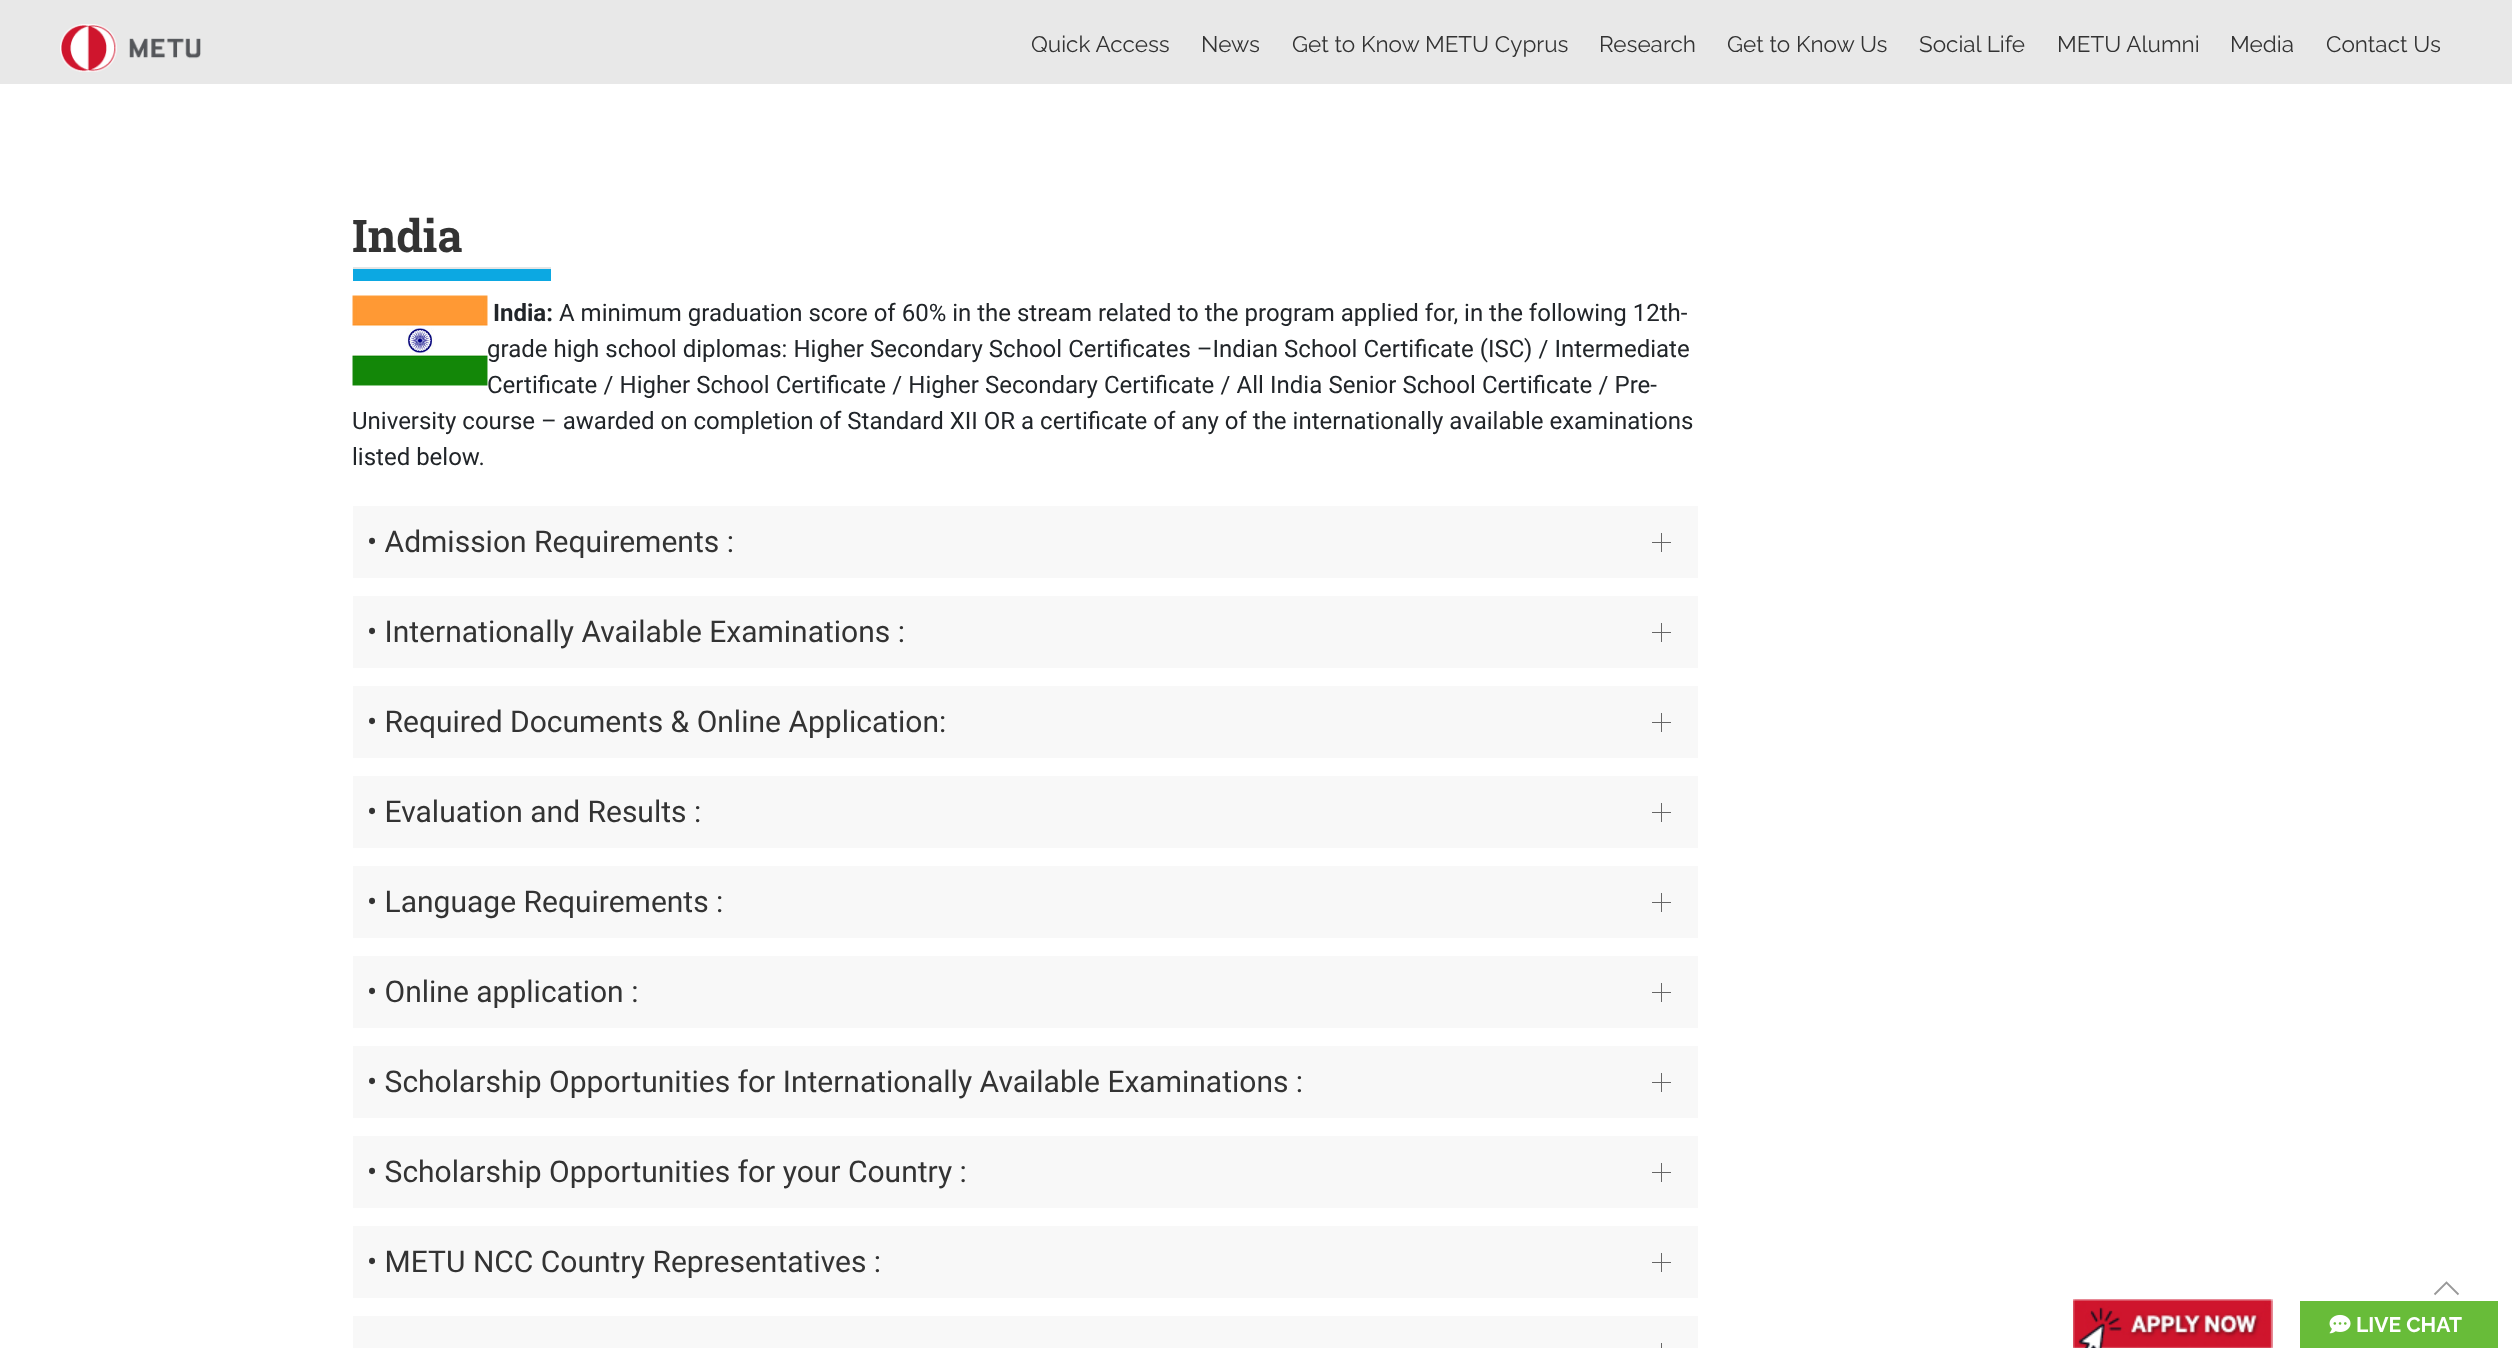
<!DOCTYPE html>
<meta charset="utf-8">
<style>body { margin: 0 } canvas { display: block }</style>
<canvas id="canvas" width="2512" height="1348"></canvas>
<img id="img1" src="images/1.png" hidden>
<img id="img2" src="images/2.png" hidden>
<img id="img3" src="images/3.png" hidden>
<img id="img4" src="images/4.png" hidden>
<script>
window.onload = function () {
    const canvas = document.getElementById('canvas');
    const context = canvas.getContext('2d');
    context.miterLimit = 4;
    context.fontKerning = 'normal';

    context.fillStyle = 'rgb(255, 255, 255)';
    context.fillRect(0, 0, 2512, 1348);
    context.fillStyle = 'rgb(232, 232, 232)';
    context.fillRect(0, 0, 2512, 84);
    context.drawImage(document.getElementById('img1'), 60, 24, 141, 48);
    context.fillStyle = 'rgb(12, 168, 226)';
    context.fillRect(353, 269, 198, 12);
    context.fillStyle = 'rgb(229, 229, 229)';
    context.fillRect(353, 267, 198, 2);
    context.drawImage(document.getElementById('img2'), 352, 295, 136, 91);
    context.fillStyle = 'rgb(248, 248, 248)';
    context.fillRect(353, 506, 1345, 72);
    context.fillStyle = 'rgb(102, 102, 102)';
    context.fillRect(1652, 542, 19, 1);
    context.fillRect(1661, 533, 1, 19);
    context.fillStyle = 'rgb(248, 248, 248)';
    context.fillRect(353, 596, 1345, 72);
    context.fillStyle = 'rgb(102, 102, 102)';
    context.fillRect(1652, 632, 19, 1);
    context.fillRect(1661, 623, 1, 19);
    context.fillStyle = 'rgb(248, 248, 248)';
    context.fillRect(353, 686, 1345, 72);
    context.fillStyle = 'rgb(102, 102, 102)';
    context.fillRect(1652, 722, 19, 1);
    context.fillRect(1661, 713, 1, 19);
    context.fillStyle = 'rgb(248, 248, 248)';
    context.fillRect(353, 776, 1345, 72);
    context.fillStyle = 'rgb(102, 102, 102)';
    context.fillRect(1652, 812, 19, 1);
    context.fillRect(1661, 803, 1, 19);
    context.fillStyle = 'rgb(248, 248, 248)';
    context.fillRect(353, 866, 1345, 72);
    context.fillStyle = 'rgb(102, 102, 102)';
    context.fillRect(1652, 902, 19, 1);
    context.fillRect(1661, 893, 1, 19);
    context.fillStyle = 'rgb(248, 248, 248)';
    context.fillRect(353, 956, 1345, 72);
    context.fillStyle = 'rgb(102, 102, 102)';
    context.fillRect(1652, 992, 19, 1);
    context.fillRect(1661, 983, 1, 19);
    context.fillStyle = 'rgb(248, 248, 248)';
    context.fillRect(353, 1046, 1345, 72);
    context.fillStyle = 'rgb(102, 102, 102)';
    context.fillRect(1652, 1082, 19, 1);
    context.fillRect(1661, 1073, 1, 19);
    context.fillStyle = 'rgb(248, 248, 248)';
    context.fillRect(353, 1136, 1345, 72);
    context.fillStyle = 'rgb(102, 102, 102)';
    context.fillRect(1652, 1172, 19, 1);
    context.fillRect(1661, 1163, 1, 19);
    context.fillStyle = 'rgb(248, 248, 248)';
    context.fillRect(353, 1226, 1345, 72);
    context.fillStyle = 'rgb(102, 102, 102)';
    context.fillRect(1652, 1262, 19, 1);
    context.fillRect(1661, 1253, 1, 19);
    context.fillStyle = 'rgb(248, 248, 248)';
    context.fillRect(353, 1316, 1345, 32);
    context.fillStyle = 'rgb(102, 102, 102)';
    context.fillRect(1661, 1343, 1, 5);
    context.beginPath();
    context.moveTo(2434.5, 1294.5);
    context.lineTo(2446.5, 1282.5);
    context.lineTo(2458.5, 1294.5);
    context.strokeStyle = 'rgb(153, 153, 153)';
    context.lineWidth = 1.8;
    context.stroke();
    context.fillStyle = 'rgb(104, 188, 57)';
    context.fillRect(2300, 1301, 198, 47);
    context.drawImage(document.getElementById('img3'), 2073, 1299, 200, 49);
    context.drawImage(document.getElementById('img4'), 2329, 1314, 22, 20);
    context.font = '22.5px Raleway';
    context.fillStyle = 'rgb(51, 51, 51)';
    context.fillText('Quick Access', 1031, 52);
    context.fillText('News', 1201, 52);
    context.fillText('Get to Know METU Cyprus', 1292, 52);
    context.fillText('Research', 1599, 52);
    context.fillText('Get to Know Us', 1727, 52);
    context.fillText('Social Life', 1919, 52);
    context.fillText('METU Alumni', 2057, 52);
    context.fillText('Media', 2230, 52);
    context.fillText('Contact Us', 2326, 52);
    context.font = 'bold 45px Roboto Slab';
    context.fillText('India', 352, 252);
    context.font = 'bold 24px Roboto';
    context.fillStyle = 'rgb(33, 37, 41)';
    context.fillText('India:', 493, 321);
    context.font = '24px Roboto';
    context.fillText('A minimum graduation score of 60% in the stream related to the program applied for, in the following 12th-', 559, 321);
    context.wordSpacing = '0.1px';
    context.fillText('grade high school diplomas: Higher Secondary School Certificates –Indian School Certificate (ISC) / Intermediate', 487, 357);
    context.wordSpacing = '0.25px';
    context.fillText('Certificate / Higher School Certificate / Higher Secondary Certificate / All India Senior School Certificate / Pre-', 487, 393);
    context.wordSpacing = '0px';
    context.fillText('University course – awarded on completion of Standard XII OR a certificate of any of the internationally available examinations', 352, 429);
    context.fillText('listed below.', 352, 465);
    context.font = '30px Roboto';
    context.fillStyle = 'rgb(51, 51, 51)';
    context.fillText('• Admission Requirements :', 367, 552);
    context.fillText('• Internationally Available Examinations :', 367, 642);
    context.fillText('• Required Documents & Online Application:', 367, 732);
    context.fillText('• Evaluation and Results :', 367, 822);
    context.fillText('• Language Requirements :', 367, 912);
    context.fillText('• Online application :', 367, 1002);
    context.fillText('• Scholarship Opportunities for Internationally Available Examinations :', 367, 1092);
    context.fillText('• Scholarship Opportunities for your Country :', 367, 1182);
    context.fillText('• METU NCC Country Representatives :', 367, 1272);
    context.font = 'bold 21px Raleway';
    context.fillStyle = 'rgb(255, 255, 255)';
    context.fillText('LIVE CHAT', 2356, 1332);
};
</script>
